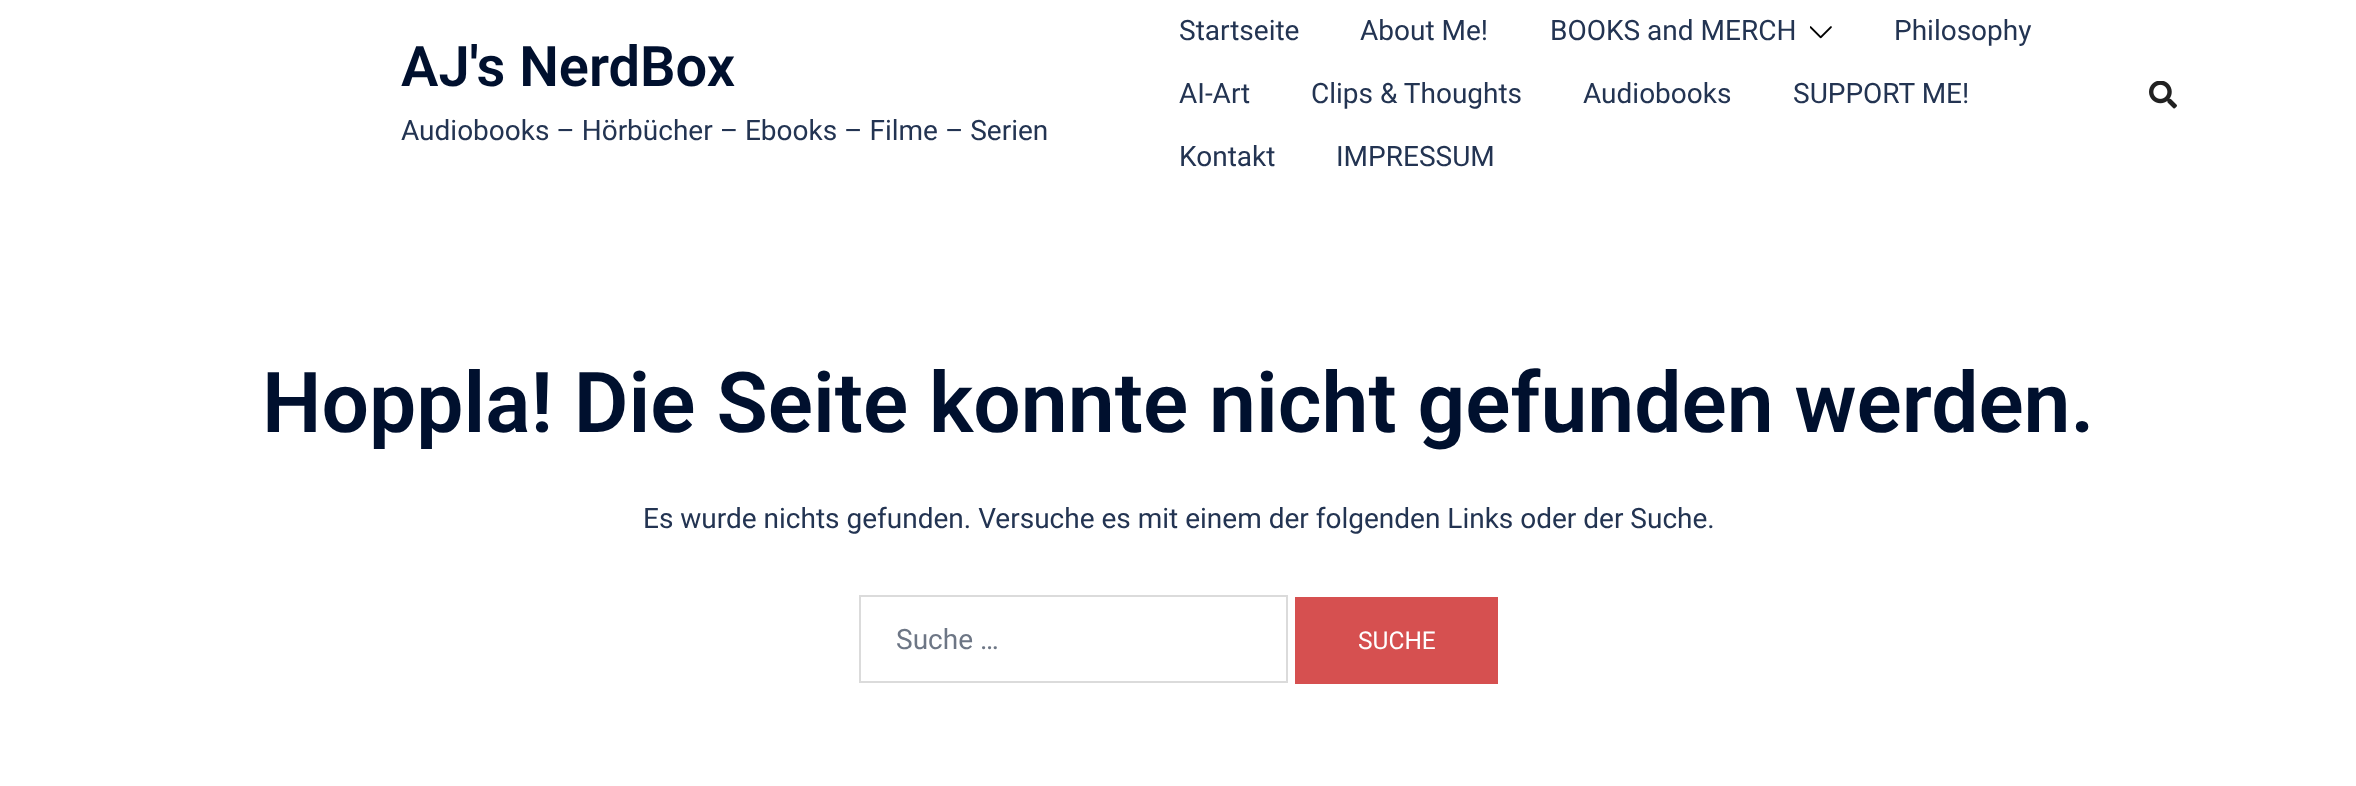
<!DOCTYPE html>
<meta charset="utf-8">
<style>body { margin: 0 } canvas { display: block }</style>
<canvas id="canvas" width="2356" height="786"></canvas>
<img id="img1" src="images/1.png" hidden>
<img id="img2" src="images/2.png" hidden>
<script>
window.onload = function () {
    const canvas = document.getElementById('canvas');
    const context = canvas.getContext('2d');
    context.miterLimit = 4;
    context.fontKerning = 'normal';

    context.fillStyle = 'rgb(255, 255, 255)';
    context.fillRect(0, 0, 2356, 786);
    context.drawImage(document.getElementById('img1'), 1810, 26, 22, 13);
    context.drawImage(document.getElementById('img2'), 2149, 81, 28, 28);
    context.strokeStyle = 'rgb(219, 219, 219)';
    context.lineWidth = 2;
    context.strokeRect(860, 596, 427, 86);
    context.fillStyle = 'rgb(214, 80, 80)';
    context.fillRect(1295, 597, 203, 87);
    context.font = '600 56px Roboto';
    context.fillStyle = 'rgb(0, 16, 46)';
    context.fillText('AJ\'s NerdBox', 401, 86);
    context.font = '28px Roboto';
    context.fillStyle = 'rgb(35, 52, 82)';
    context.fillText('Audiobooks – Hörbücher – Ebooks – Filme – Serien', 401, 140);
    context.fillText('Startseite', 1179, 40);
    context.fillText('About Me!', 1360, 40);
    context.fillText('BOOKS and MERCH', 1550, 40);
    context.fillText('Philosophy', 1894, 40);
    context.fillText('AI-Art', 1179, 103);
    context.fillText('Clips & Thoughts', 1311, 103);
    context.fillText('Audiobooks', 1583, 103);
    context.fillText('SUPPORT ME!', 1793, 103);
    context.fillText('Kontakt', 1179, 166);
    context.fillText('IMPRESSUM', 1336, 166);
    context.font = '600 84px Roboto';
    context.fillStyle = 'rgb(0, 16, 46)';
    context.fillText('Hoppla! Die Seite konnte nicht gefunden werden.', 262, 432);
    context.font = '28px Roboto';
    context.fillStyle = 'rgb(35, 52, 82)';
    context.fillText('Es wurde nichts gefunden. Versuche es mit einem der folgenden Links oder der Suche.', 643, 528);
    context.fillStyle = 'rgb(109, 118, 133)';
    context.fillText('Suche …', 896, 649);
    context.font = '24.5px Roboto';
    context.fillStyle = 'rgb(255, 255, 255)';
    context.fillText('SUCHE', 1358, 649);
};
</script>
